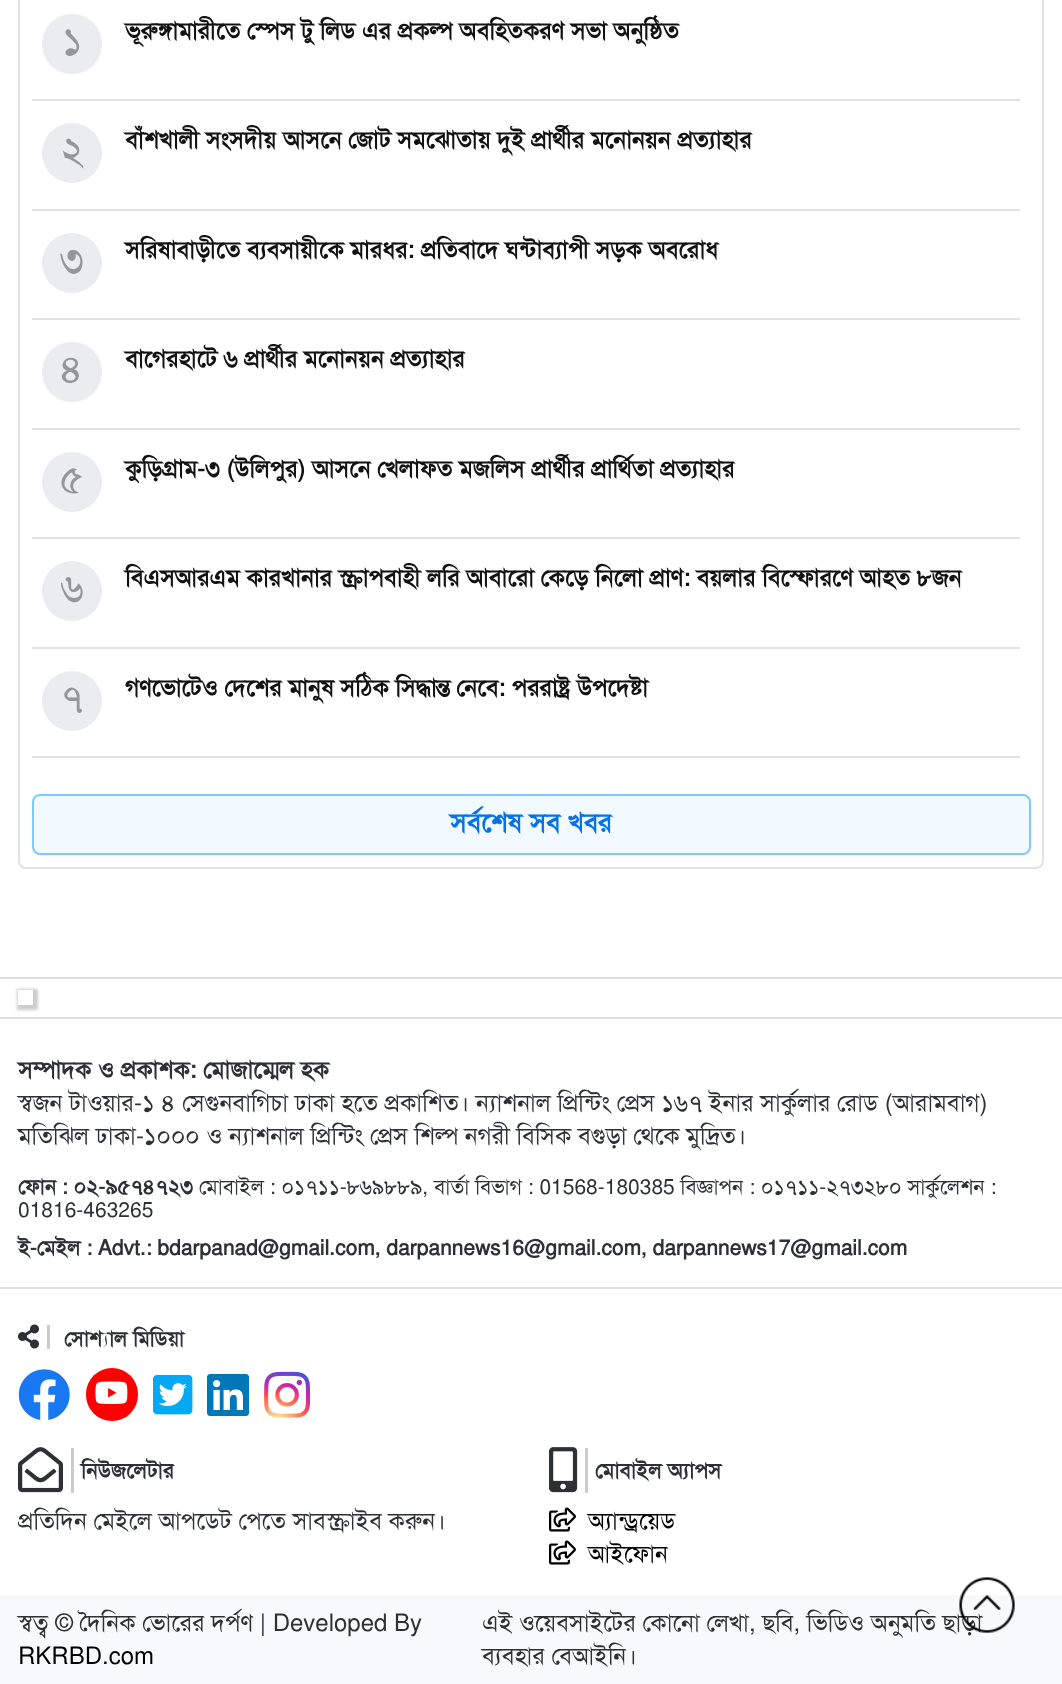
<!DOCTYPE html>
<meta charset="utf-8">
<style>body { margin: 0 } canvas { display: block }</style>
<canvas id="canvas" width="1062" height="1684"></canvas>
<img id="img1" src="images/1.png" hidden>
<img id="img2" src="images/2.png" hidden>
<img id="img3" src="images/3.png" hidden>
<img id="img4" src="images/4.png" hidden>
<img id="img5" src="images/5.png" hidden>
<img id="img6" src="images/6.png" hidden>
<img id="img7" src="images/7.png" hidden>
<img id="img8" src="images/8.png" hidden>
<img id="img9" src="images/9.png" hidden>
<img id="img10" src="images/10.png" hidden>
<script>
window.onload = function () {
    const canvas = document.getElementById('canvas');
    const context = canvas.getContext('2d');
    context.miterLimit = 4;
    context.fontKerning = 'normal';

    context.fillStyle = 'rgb(255, 255, 255)';
    context.fillRect(0, 0, 1062, 1684);
    context.beginPath();
    context.roundRect(19, -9, 1024, 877, 7);
    context.strokeStyle = 'rgb(226, 226, 226)';
    context.lineWidth = 2;
    context.stroke();
    context.fillStyle = 'rgb(235, 236, 240)';
    context.beginPath();
    context.arc(72, 44, 30, 0, 2 * Math.PI);
    context.fill();
    context.fillStyle = 'rgb(226, 226, 226)';
    context.fillRect(32, 99, 988, 2);
    context.fillStyle = 'rgb(235, 236, 240)';
    context.beginPath();
    context.arc(72, 153, 30, 0, 2 * Math.PI);
    context.fill();
    context.fillStyle = 'rgb(226, 226, 226)';
    context.fillRect(32, 209, 988, 2);
    context.fillStyle = 'rgb(235, 236, 240)';
    context.beginPath();
    context.arc(72, 263, 30, 0, 2 * Math.PI);
    context.fill();
    context.fillStyle = 'rgb(226, 226, 226)';
    context.fillRect(32, 318, 988, 2);
    context.fillStyle = 'rgb(235, 236, 240)';
    context.beginPath();
    context.arc(72, 372, 30, 0, 2 * Math.PI);
    context.fill();
    context.fillStyle = 'rgb(226, 226, 226)';
    context.fillRect(32, 428, 988, 2);
    context.fillStyle = 'rgb(235, 236, 240)';
    context.beginPath();
    context.arc(72, 482, 30, 0, 2 * Math.PI);
    context.fill();
    context.fillStyle = 'rgb(226, 226, 226)';
    context.fillRect(32, 537, 988, 2);
    context.fillStyle = 'rgb(235, 236, 240)';
    context.beginPath();
    context.arc(72, 591, 30, 0, 2 * Math.PI);
    context.fill();
    context.fillStyle = 'rgb(226, 226, 226)';
    context.fillRect(32, 647, 988, 2);
    context.fillStyle = 'rgb(235, 236, 240)';
    context.beginPath();
    context.arc(72, 701, 30, 0, 2 * Math.PI);
    context.fill();
    context.fillStyle = 'rgb(226, 226, 226)';
    context.fillRect(32, 756, 988, 2);
    context.fillStyle = 'rgb(242, 249, 255)';
    context.beginPath();
    context.roundRect(33, 795, 997, 59, 7);
    context.fill();
    context.strokeStyle = 'rgb(122, 203, 255)';
    context.stroke();
    context.fillStyle = 'rgb(222, 226, 230)';
    context.fillRect(0, 977, 1062, 2);
    context.fillRect(0, 1017, 1062, 2);
    context.save();
    context.beginPath();
    context.moveTo(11, 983);
    context.lineTo(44, 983);
    context.lineTo(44, 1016);
    context.lineTo(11, 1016);
    context.closePath();
    context.moveTo(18, 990);
    context.lineTo(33, 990);
    context.lineTo(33, 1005);
    context.lineTo(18, 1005);
    context.closePath();
    context.clip('evenodd');
    context.fillStyle = 'rgb(204, 204, 204)';
    context.filter = 'blur(1.5px)';
    context.beginPath();
    context.rect(17, 989, 21, 21);
    context.fill();
    context.filter = 'none';
    context.restore();
    context.fillRect(0, 1287, 1062, 2);
    context.fillStyle = 'rgb(204, 204, 204)';
    context.fillRect(47, 1325, 3, 24);
    context.drawImage(document.getElementById('img1'), 18, 1324, 21, 25);
    context.drawImage(document.getElementById('img2'), 18, 1369, 52, 51);
    context.fillStyle = 'rgb(254, 0, 0)';
    context.beginPath();
    context.roundRect(86, 1368, 52, 53, 26);
    context.fill();
    context.drawImage(document.getElementById('img3'), 95, 1381, 33, 23);
    context.drawImage(document.getElementById('img4'), 153, 1374, 40, 41);
    context.drawImage(document.getElementById('img5'), 207, 1374, 42, 42);
    context.drawImage(document.getElementById('img6'), 264, 1371, 47, 47);
    context.fillStyle = 'rgb(204, 204, 204)';
    context.fillRect(71, 1448, 3, 45);
    context.drawImage(document.getElementById('img7'), 18, 1447, 45, 46);
    context.fillRect(585, 1448, 3, 45);
    context.drawImage(document.getElementById('img8'), 549, 1447, 29, 46);
    context.drawImage(document.getElementById('img9'), 549, 1507, 27, 25);
    context.drawImage(document.getElementById('img9'), 549, 1540, 27, 25);
    context.fillStyle = 'rgb(248, 249, 250)';
    context.fillRect(0, 1595, 1062, 89);
    context.font = '39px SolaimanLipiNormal';
    context.fillStyle = 'rgb(149, 150, 154)';
    context.fillText('১', 62, 54);
    context.font = 'bold 24px SolaimanLipiNormal';
    context.fillStyle = 'rgb(18, 18, 18)';
    context.fillText('ভূরুঙ্গামারীতে স্পেস টু লিড এর প্রকল্প অবহিতকরণ সভা অনুষ্ঠিত', 125, 39);
    context.font = '39px SolaimanLipiNormal';
    context.fillStyle = 'rgb(149, 150, 154)';
    context.fillText('২', 61, 163);
    context.font = 'bold 24px SolaimanLipiNormal';
    context.fillStyle = 'rgb(18, 18, 18)';
    context.fillText('বাঁশখালী সংসদীয় আসনে জোট সমঝোতায় দুই প্রার্থীর মনোনয়ন প্রত্যাহার', 125, 148);
    context.font = '39px SolaimanLipiNormal';
    context.fillStyle = 'rgb(149, 150, 154)';
    context.fillText('৩', 60, 273);
    context.font = 'bold 24px SolaimanLipiNormal';
    context.fillStyle = 'rgb(18, 18, 18)';
    context.fillText('সরিষাবাড়ীতে ব্যবসায়ীকে মারধর: প্রতিবাদে ঘন্টাব্যাপী সড়ক অবরোধ', 125, 258);
    context.font = '39px SolaimanLipiNormal';
    context.fillStyle = 'rgb(149, 150, 154)';
    context.fillText('৪', 60, 382);
    context.font = 'bold 24px SolaimanLipiNormal';
    context.fillStyle = 'rgb(18, 18, 18)';
    context.fillText('বাগেরহাটে ৬ প্রার্থীর মনোনয়ন প্রত্যাহার', 125, 367);
    context.font = '39px SolaimanLipiNormal';
    context.fillStyle = 'rgb(149, 150, 154)';
    context.fillText('৫', 60, 492);
    context.font = 'bold 24px SolaimanLipiNormal';
    context.fillStyle = 'rgb(18, 18, 18)';
    context.fillText('কুড়িগ্রাম-৩ (উলিপুর) আসনে খেলাফত মজলিস প্রার্থীর প্রার্থিতা প্রত্যাহার', 125, 477);
    context.font = '39px SolaimanLipiNormal';
    context.fillStyle = 'rgb(149, 150, 154)';
    context.fillText('৬', 61, 601);
    context.font = 'bold 24px SolaimanLipiNormal';
    context.fillStyle = 'rgb(18, 18, 18)';
    context.fillText('বিএসআরএম কারখানার স্ক্রাপবাহী লরি আবারো কেড়ে নিলো প্রাণ: বয়লার বিস্ফোরণে আহত ৮জন', 125, 586);
    context.font = '39px SolaimanLipiNormal';
    context.fillStyle = 'rgb(149, 150, 154)';
    context.fillText('৭', 60, 711);
    context.font = 'bold 24px SolaimanLipiNormal';
    context.fillStyle = 'rgb(18, 18, 18)';
    context.fillText('গণভোটেও দেশের মানুষ সঠিক সিদ্ধান্ত নেবে: পররাষ্ট্র উপদেষ্টা', 125, 696);
    context.font = 'bold 27px SolaimanLipiNormal';
    context.fillStyle = 'rgb(5, 115, 230)';
    context.fillText('সর্বশেষ সব খবর', 450, 832);
    context.font = 'bold 24px SolaimanLipiNormal';
    context.fillStyle = 'rgb(45, 49, 52)';
    context.fillText('সম্পাদক ও প্রকাশক: মোজাম্মেল হক', 18, 1078);
    context.font = '24px SolaimanLipiNormal';
    context.fillText('স্বজন টাওয়ার-১ ৪ সেগুনবাগিচা ঢাকা হতে প্রকাশিত। ন্যাশনাল প্রিন্টিং প্রেস ১৬৭ ইনার সার্কুলার রোড (আরামবাগ)', 18, 1111);
    context.fillText('মতিঝিল ঢাকা-১০০০ ও ন্যাশনাল প্রিন্টিং প্রেস শিল্প নগরী বিসিক বগুড়া থেকে মুদ্রিত।', 18, 1144);
    context.font = 'bold 21px SolaimanLipiNormal';
    context.fillText('ফোন : ০২-৯৫৭৪৭২৩', 18, 1194);
    context.font = '21px SolaimanLipiNormal';
    context.fillText('মোবাইল : ০১৭১১-৮৬৯৮৮৯, বার্তা বিভাগ : 01568-180385 বিজ্ঞাপন : ০১৭১১-২৭৩২৮০ সার্কুলেশন :', 199, 1194);
    context.fillText('01816-463265', 18, 1217);
    context.font = 'bold 21px SolaimanLipiNormal';
    context.fillText('ই-মেইল : Advt.: bdarpanad@gmail.com, darpannews16@gmail.com, darpannews17@gmail.com', 18, 1255);
    context.fillText('সোশ্যাল মিডিয়া', 64, 1346);
    context.font = 'bold 21.5px SolaimanLipiNormal';
    context.fillText('নিউজলেটার', 81, 1478);
    context.font = '24px SolaimanLipiNormal';
    context.fillText('প্রতিদিন মেইলে আপডেট পেতে সাবস্ক্রাইব করুন।', 18, 1529);
    context.font = 'bold 21.5px SolaimanLipiNormal';
    context.fillText('মোবাইল অ্যাপস', 595, 1478);
    context.font = '24px SolaimanLipiNormal';
    context.fillStyle = 'rgb(0, 0, 0)';
    context.fillText('অ্যান্ড্রয়েড', 588, 1529);
    context.fillText('আইফোন', 588, 1562);
    context.fillStyle = 'rgb(45, 49, 52)';
    context.fillText('স্বত্ব © দৈনিক ভোরের দর্পণ | Developed By', 18, 1631);
    context.fillStyle = 'rgb(0, 0, 0)';
    context.fillText('RKRBD.com', 18, 1664);
    context.fillStyle = 'rgb(45, 49, 52)';
    context.fillText('এই ওয়েবসাইটের কোনো লেখা, ছবি, ভিডিও অনুমতি ছাড়া', 482, 1631);
    context.fillText('ব্যবহার বেআইনি।', 482, 1664);
    context.drawImage(document.getElementById('img10'), 959, 1577, 56, 56);
};
</script>
